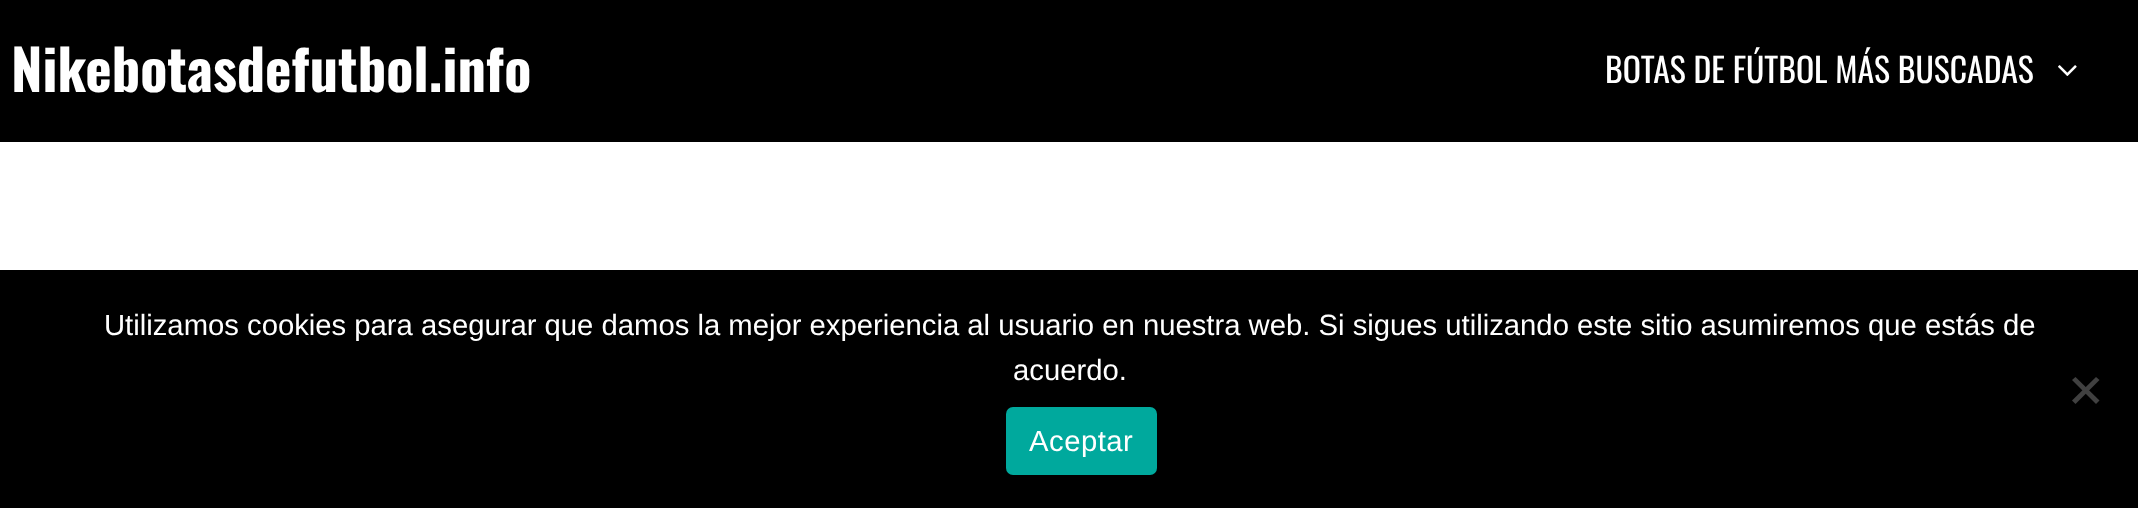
<!DOCTYPE html>
<meta charset="utf-8">
<style>body { margin: 0 } canvas { display: block }</style>
<canvas id="canvas" width="2138" height="508"></canvas>
<img id="img1" src="images/1.png" hidden>
<script>
window.onload = function () {
    const canvas = document.getElementById('canvas');
    const context = canvas.getContext('2d');
    context.miterLimit = 4;
    context.fontKerning = 'normal';

    context.fillStyle = 'rgb(255, 255, 255)';
    context.fillRect(0, 0, 2138, 508);
    context.fillStyle = 'rgb(0, 0, 0)';
    context.fillRect(0, 0, 2138, 142);
    context.drawImage(document.getElementById('img1'), 2058, 65, 19, 11);
    context.fillRect(0, 270, 2138, 238);
    context.fillStyle = 'rgb(64, 64, 64)';
    context.beginPath();
    context.moveTo(2096, 377);
    context.lineTo(2099.5, 380);
    context.lineTo(2075.5, 404);
    context.lineTo(2072, 400.5);
    context.closePath();
    context.fill();
    context.beginPath();
    context.moveTo(2072, 380);
    context.lineTo(2075.5, 377);
    context.lineTo(2099.5, 400.5);
    context.lineTo(2096, 404);
    context.closePath();
    context.fill();
    context.fillStyle = 'rgb(0, 169, 157)';
    context.beginPath();
    context.roundRect(1006, 407, 151, 68, 7);
    context.fill();
    context.font = 'bold 56.25px Oswald';
    context.fillStyle = 'rgb(255, 255, 255)';
    context.fillText('Nikebotasdefutbol.info', 11, 92);
    context.font = '33.75px Oswald';
    context.fillText('BOTAS DE FÚTBOL MÁS BUSCADAS', 1605, 83);
    context.font = '29.25px Liberation Sans';
    context.fillText('Utilizamos cookies para asegurar que damos la mejor experiencia al usuario en nuestra web. Si sigues utilizando este sitio asumiremos que estás de', 104, 335);
    context.fillText('acuerdo.', 1013, 380);
    context.letterSpacing = '0.5px';
    context.fillText('Aceptar', 1029, 451);
};
</script>
